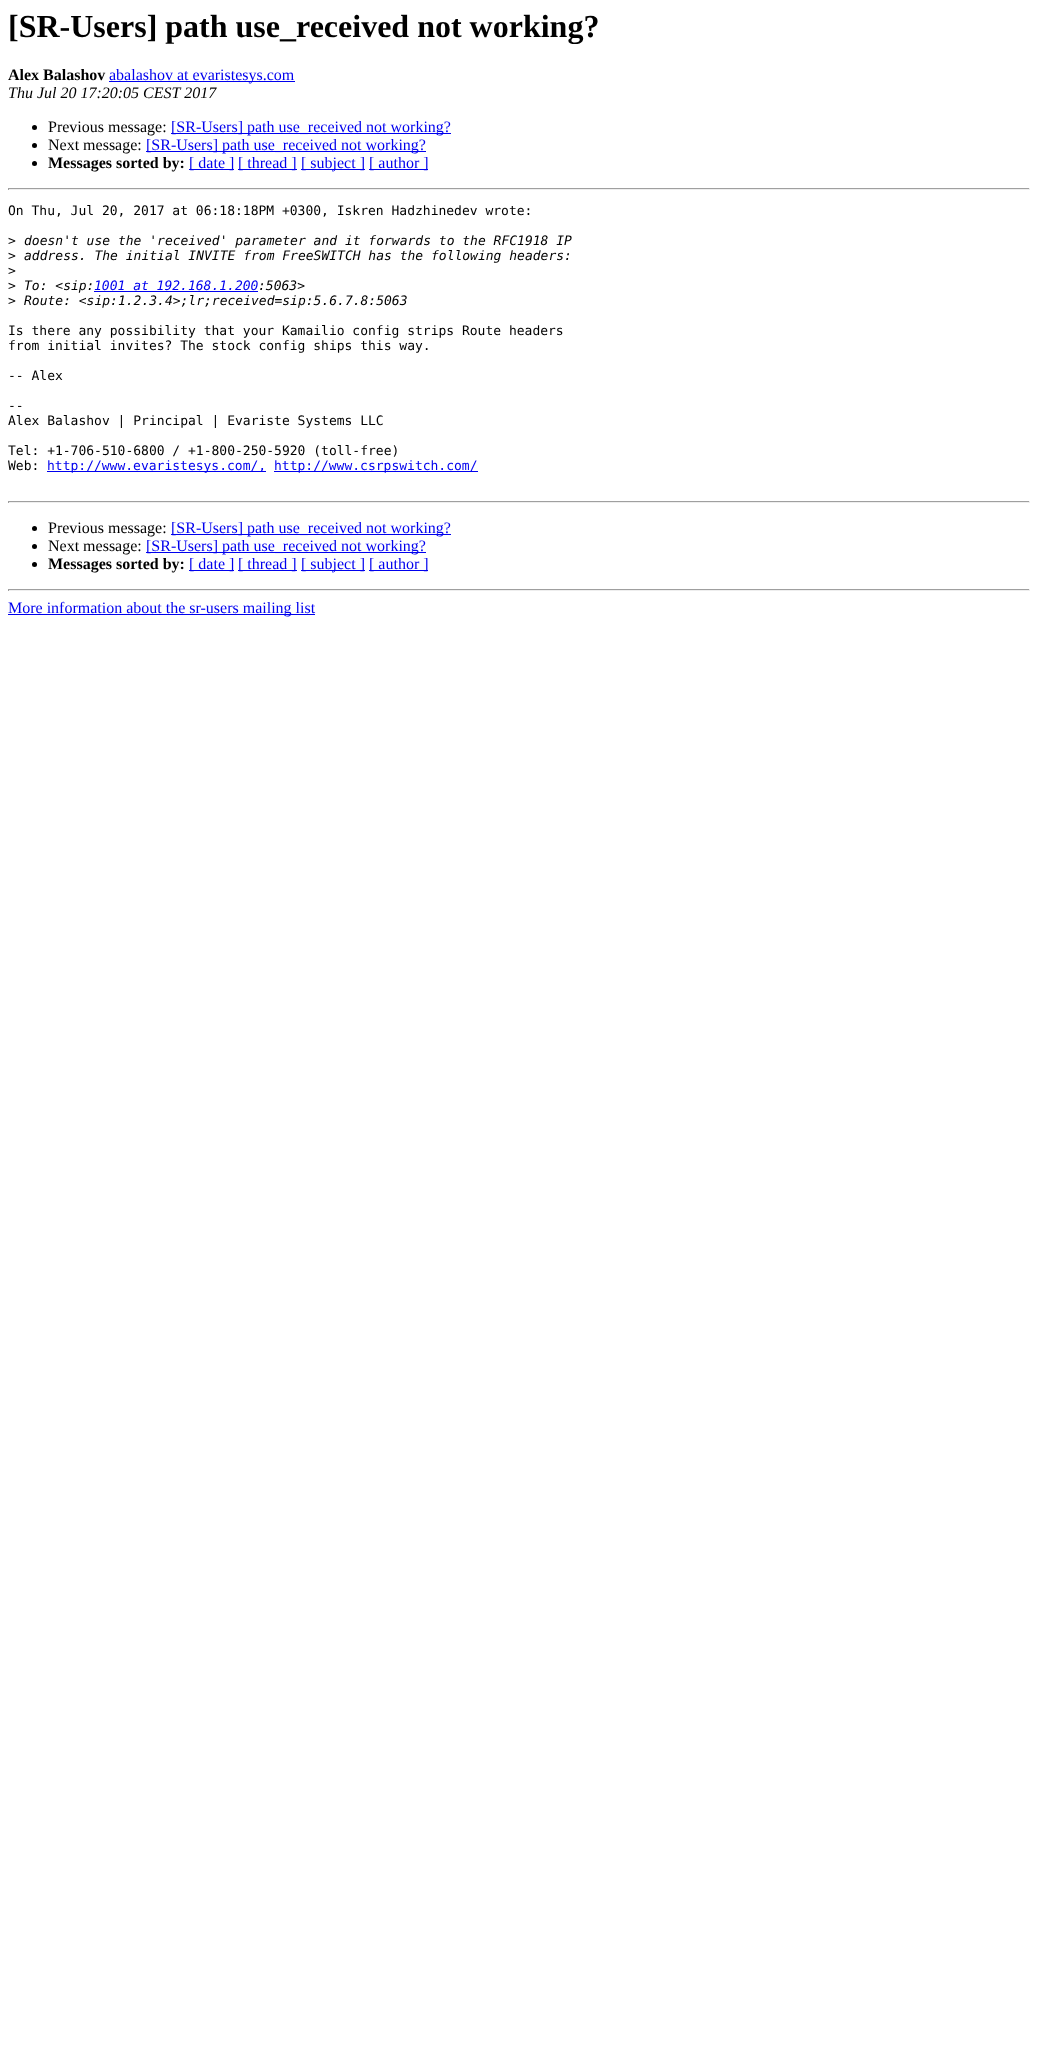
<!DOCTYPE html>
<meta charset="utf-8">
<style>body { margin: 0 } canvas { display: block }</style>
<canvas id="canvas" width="1038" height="2065"></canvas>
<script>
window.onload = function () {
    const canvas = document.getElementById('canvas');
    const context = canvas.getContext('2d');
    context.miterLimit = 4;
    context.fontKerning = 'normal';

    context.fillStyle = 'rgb(255, 255, 255)';
    context.fillRect(0, 0, 1038, 2065);
    context.fillStyle = 'rgb(0, 0, 238)';
    context.fillRect(109, 81, 186, 1);
    context.fillStyle = 'rgb(0, 0, 0)';
    context.beginPath();
    context.arc(34.5, 127.5, 2.5, 0, 2 * Math.PI);
    context.fill();
    context.fillStyle = 'rgb(0, 0, 238)';
    context.fillRect(171, 133, 280, 1);
    context.fillStyle = 'rgb(0, 0, 0)';
    context.beginPath();
    context.arc(34.5, 145.5, 2.5, 0, 2 * Math.PI);
    context.fill();
    context.fillStyle = 'rgb(0, 0, 238)';
    context.fillRect(146, 151, 280, 1);
    context.fillStyle = 'rgb(0, 0, 0)';
    context.beginPath();
    context.arc(34.5, 163.5, 2.5, 0, 2 * Math.PI);
    context.fill();
    context.fillStyle = 'rgb(0, 0, 238)';
    context.fillRect(189, 169, 45, 1);
    context.fillRect(238, 169, 59, 1);
    context.fillRect(301, 169, 64, 1);
    context.fillRect(369, 169, 59, 1);
    context.fillStyle = 'rgb(159, 159, 159)';
    context.fillRect(8, 188, 1022, 1);
    context.fillStyle = 'rgb(238, 238, 238)';
    context.fillRect(1029, 188, 1, 2);
    context.fillRect(8, 189, 1022, 1);
    context.fillStyle = 'rgb(159, 159, 159)';
    context.fillRect(8, 188, 1, 2);
    context.fillStyle = 'rgb(0, 0, 238)';
    context.fillRect(94, 291, 164, 1);
    context.fillRect(47, 471, 219, 1);
    context.fillRect(274, 471, 204, 1);
    context.fillStyle = 'rgb(159, 159, 159)';
    context.fillRect(8, 501, 1022, 1);
    context.fillStyle = 'rgb(238, 238, 238)';
    context.fillRect(1029, 501, 1, 2);
    context.fillRect(8, 502, 1022, 1);
    context.fillStyle = 'rgb(159, 159, 159)';
    context.fillRect(8, 501, 1, 2);
    context.fillStyle = 'rgb(0, 0, 0)';
    context.beginPath();
    context.arc(34.5, 528.5, 2.5, 0, 2 * Math.PI);
    context.fill();
    context.fillStyle = 'rgb(0, 0, 238)';
    context.fillRect(171, 534, 280, 1);
    context.fillStyle = 'rgb(0, 0, 0)';
    context.beginPath();
    context.arc(34.5, 546.5, 2.5, 0, 2 * Math.PI);
    context.fill();
    context.fillStyle = 'rgb(0, 0, 238)';
    context.fillRect(146, 552, 280, 1);
    context.fillStyle = 'rgb(0, 0, 0)';
    context.beginPath();
    context.arc(34.5, 564.5, 2.5, 0, 2 * Math.PI);
    context.fill();
    context.fillStyle = 'rgb(0, 0, 238)';
    context.fillRect(189, 570, 45, 1);
    context.fillRect(238, 570, 59, 1);
    context.fillRect(301, 570, 64, 1);
    context.fillRect(369, 570, 59, 1);
    context.fillStyle = 'rgb(159, 159, 159)';
    context.fillRect(8, 589, 1022, 1);
    context.fillStyle = 'rgb(238, 238, 238)';
    context.fillRect(1029, 589, 1, 2);
    context.fillRect(8, 590, 1022, 1);
    context.fillStyle = 'rgb(159, 159, 159)';
    context.fillRect(8, 589, 1, 2);
    context.fillStyle = 'rgb(0, 0, 238)';
    context.fillRect(8, 614, 307, 1);
    context.font = 'bold 32px Liberation Serif';
    context.fillStyle = 'rgb(0, 0, 0)';
    context.fillText('[SR-Users] path use_received not working?', 8, 37);
    context.font = 'bold 16px Liberation Serif';
    context.fillText('Alex Balashov', 8, 80);
    context.font = '16px Liberation Serif';
    context.fillStyle = 'rgb(0, 0, 238)';
    context.fillText('abalashov at evaristesys.com', 109, 80);
    context.font = 'italic 16px Liberation Serif';
    context.fillStyle = 'rgb(0, 0, 0)';
    context.fillText('Thu Jul 20 17:20:05 CEST 2017', 8, 98);
    context.font = '16px Liberation Serif';
    context.fillText('Previous message:', 48, 132);
    context.fillStyle = 'rgb(0, 0, 238)';
    context.fillText('[SR-Users] path use_received not working?', 171, 132);
    context.fillStyle = 'rgb(0, 0, 0)';
    context.fillText('Next message:', 48, 150);
    context.fillStyle = 'rgb(0, 0, 238)';
    context.fillText('[SR-Users] path use_received not working?', 146, 150);
    context.font = 'bold 16px Liberation Serif';
    context.fillStyle = 'rgb(0, 0, 0)';
    context.fillText('Messages sorted by:', 48, 168);
    context.font = '16px Liberation Serif';
    context.fillStyle = 'rgb(0, 0, 238)';
    context.fillText('[ date ]', 189, 168);
    context.fillText('[ thread ]', 238, 168);
    context.fillText('[ subject ]', 301, 168);
    context.fillText('[ author ]', 369, 168);
    context.font = '13px DejaVu Sans Mono';
    context.fillStyle = 'rgb(0, 0, 0)';
    context.fillText('On Thu, Jul 20, 2017 at 06:18:18PM +0300, Iskren Hadzhinedev wrote:', 8, 215);
    context.fillText('>', 8, 245);
    context.font = 'italic 13px DejaVu Sans Mono';
    context.fillText('doesn\'t use the \'received\' parameter and it forwards to the RFC1918 IP', 24, 245);
    context.font = '13px DejaVu Sans Mono';
    context.fillText('>', 8, 260);
    context.font = 'italic 13px DejaVu Sans Mono';
    context.fillText('address. The initial INVITE from FreeSWITCH has the following headers:', 24, 260);
    context.font = '13px DejaVu Sans Mono';
    context.fillText('>', 8, 275);
    context.fillText('>', 8, 290);
    context.font = 'italic 13px DejaVu Sans Mono';
    context.fillText('To: <sip:', 24, 290);
    context.fillStyle = 'rgb(0, 0, 238)';
    context.fillText('1001 at 192.168.1.200', 94, 290);
    context.fillStyle = 'rgb(0, 0, 0)';
    context.fillText(':5063>', 258, 290);
    context.font = '13px DejaVu Sans Mono';
    context.fillText('>', 8, 305);
    context.font = 'italic 13px DejaVu Sans Mono';
    context.fillText('Route: <sip:1.2.3.4>;lr;received=sip:5.6.7.8:5063', 24, 305);
    context.font = '13px DejaVu Sans Mono';
    context.fillText('Is there any possibility that your Kamailio config strips Route headers', 8, 335);
    context.fillText('from initial invites? The stock config ships this way.', 8, 350);
    context.fillText('-- Alex', 8, 380);
    context.fillText('--', 8, 410);
    context.fillText('Alex Balashov | Principal | Evariste Systems LLC', 8, 425);
    context.fillText('Tel: +1-706-510-6800 / +1-800-250-5920 (toll-free)', 8, 455);
    context.fillText('Web:', 8, 470);
    context.fillStyle = 'rgb(0, 0, 238)';
    context.fillText('http://www.evaristesys.com/,', 47, 470);
    context.fillText('http://www.csrpswitch.com/', 274, 470);
    context.font = '16px Liberation Serif';
    context.fillStyle = 'rgb(0, 0, 0)';
    context.fillText('Previous message:', 48, 533);
    context.fillStyle = 'rgb(0, 0, 238)';
    context.fillText('[SR-Users] path use_received not working?', 171, 533);
    context.fillStyle = 'rgb(0, 0, 0)';
    context.fillText('Next message:', 48, 551);
    context.fillStyle = 'rgb(0, 0, 238)';
    context.fillText('[SR-Users] path use_received not working?', 146, 551);
    context.font = 'bold 16px Liberation Serif';
    context.fillStyle = 'rgb(0, 0, 0)';
    context.fillText('Messages sorted by:', 48, 569);
    context.font = '16px Liberation Serif';
    context.fillStyle = 'rgb(0, 0, 238)';
    context.fillText('[ date ]', 189, 569);
    context.fillText('[ thread ]', 238, 569);
    context.fillText('[ subject ]', 301, 569);
    context.fillText('[ author ]', 369, 569);
    context.fillText('More information about the sr-users mailing list', 8, 613);
};
</script>
